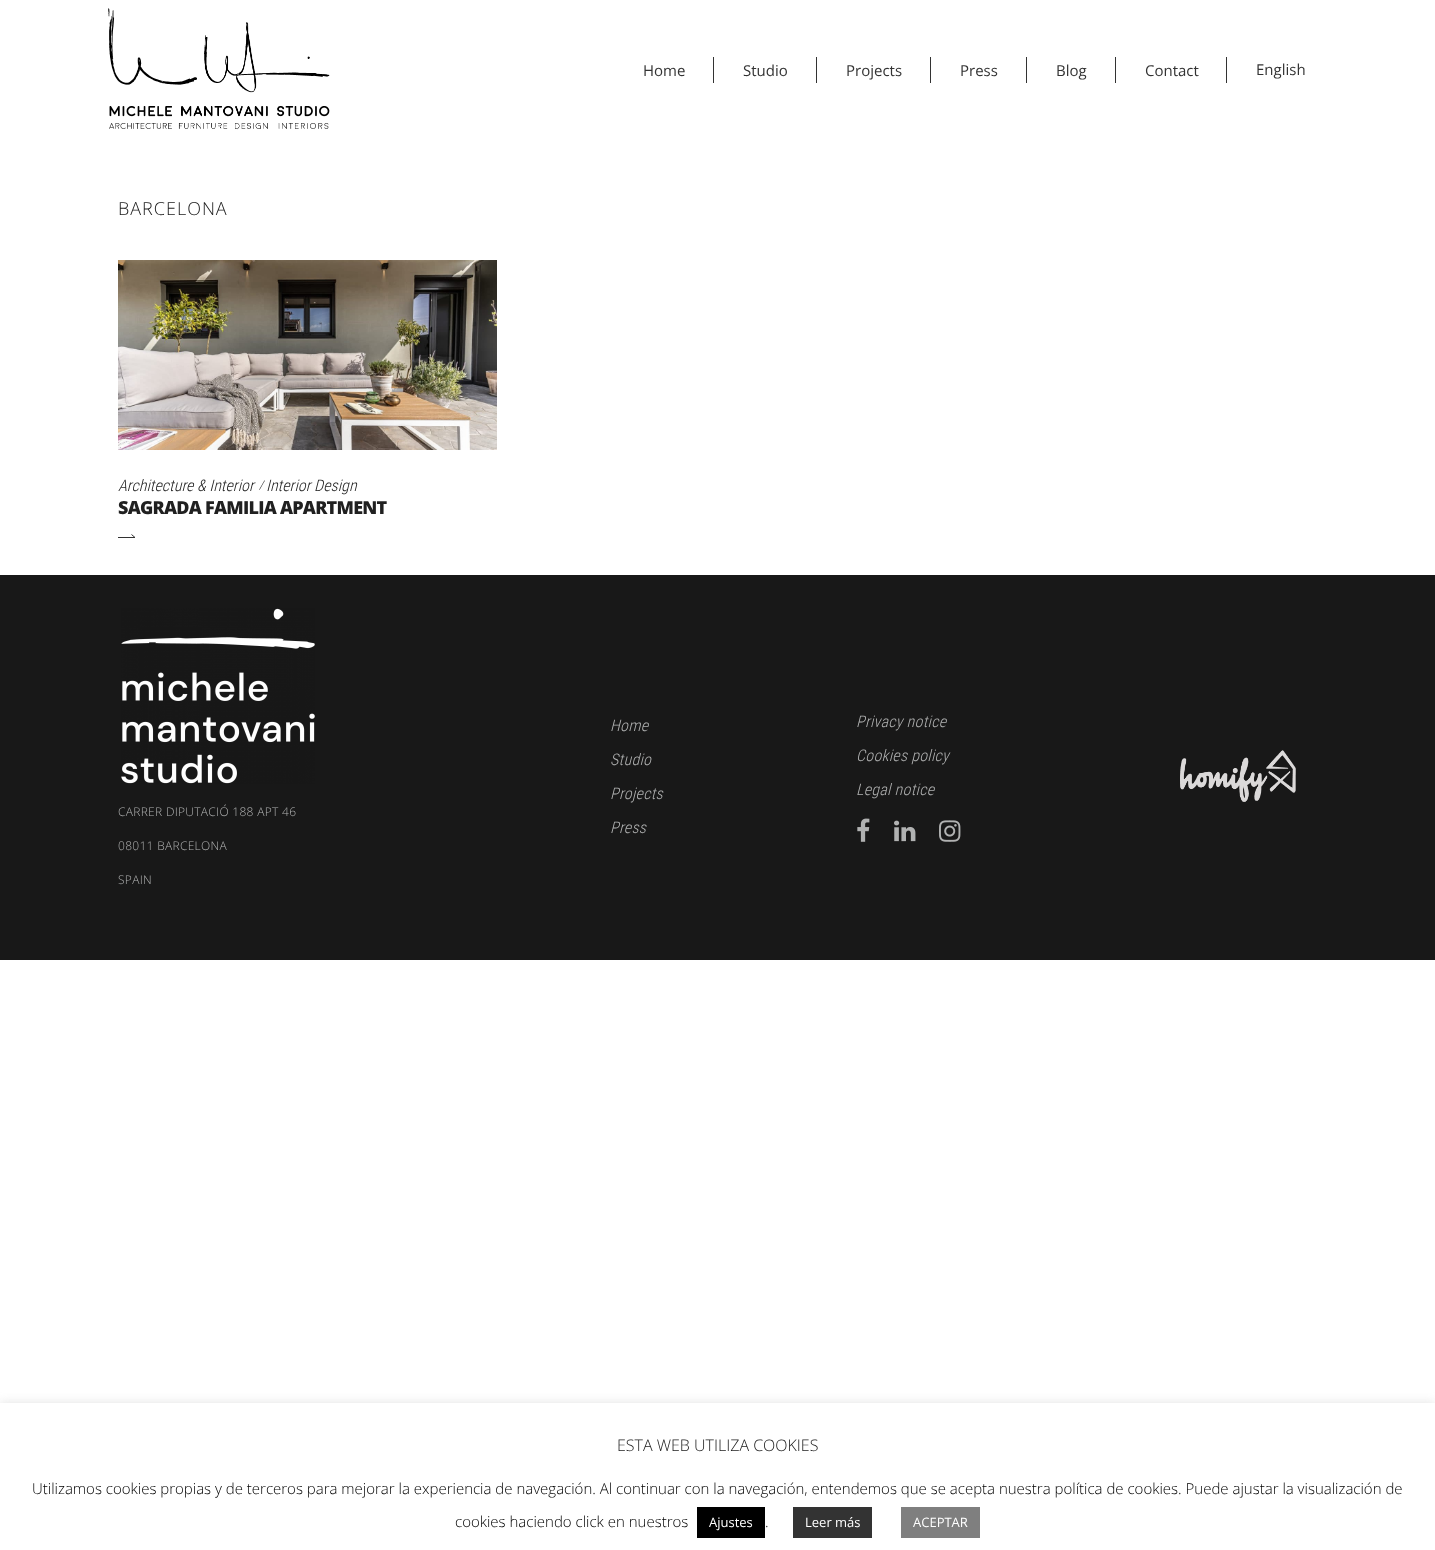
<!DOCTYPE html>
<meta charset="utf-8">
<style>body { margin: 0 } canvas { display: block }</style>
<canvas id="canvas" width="1435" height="1550"></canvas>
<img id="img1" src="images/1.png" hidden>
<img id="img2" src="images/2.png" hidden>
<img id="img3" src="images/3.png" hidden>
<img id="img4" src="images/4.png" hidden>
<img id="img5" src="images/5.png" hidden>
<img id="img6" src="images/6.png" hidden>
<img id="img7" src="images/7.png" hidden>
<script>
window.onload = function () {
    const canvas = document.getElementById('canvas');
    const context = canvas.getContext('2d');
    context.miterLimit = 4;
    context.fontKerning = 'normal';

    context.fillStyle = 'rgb(255, 255, 255)';
    context.fillRect(0, 0, 1435, 1550);
    context.drawImage(document.getElementById('img1'), 108, 8, 222, 122);
    context.fillStyle = 'rgb(51, 51, 51)';
    context.fillRect(713, 57, 1, 26);
    context.fillRect(816, 57, 1, 26);
    context.fillRect(930, 57, 1, 26);
    context.fillRect(1026, 57, 1, 26);
    context.fillRect(1115, 57, 1, 26);
    context.fillRect(1226, 57, 1, 26);
    context.drawImage(document.getElementById('img2'), 118, 260, 379, 190);
    context.beginPath();
    context.moveTo(118, 537.5);
    context.lineTo(135, 537.5);
    context.lineTo(131.5, 534.5);
    context.strokeStyle = 'rgb(50, 50, 50)';
    context.stroke();
    context.fillStyle = 'rgb(24, 24, 24)';
    context.fillRect(0, 575, 1435, 385);
    context.drawImage(document.getElementById('img3'), 857, 818, 13, 24);
    context.drawImage(document.getElementById('img4'), 894, 820, 22, 22);
    context.drawImage(document.getElementById('img5'), 939, 820, 22, 22);
    context.drawImage(document.getElementById('img6'), 1180, 750, 116, 52);
    context.drawImage(document.getElementById('img7'), 121, 608, 194, 176);
    context.fillStyle = 'rgba(172, 171, 171, 0.3)';
    context.filter = 'blur(5px)';
    context.beginPath();
    context.rect(0, 1402, 1435, 147);
    context.fill();
    context.filter = 'none';
    context.fillStyle = 'rgb(255, 255, 255)';
    context.fillRect(0, 1403, 1435, 147);
    context.fillStyle = 'rgb(0, 0, 0)';
    context.fillRect(697, 1507, 68, 31);
    context.fillStyle = 'rgb(51, 51, 51)';
    context.fillRect(793, 1507, 79, 31);
    context.fillStyle = 'rgb(127, 127, 127)';
    context.fillRect(901, 1507, 79, 31);
    context.font = '15px Open Sans';
    context.fillStyle = 'rgb(51, 51, 51)';
    context.fillText('Home', 643, 76);
    context.fillText('Studio', 743, 76);
    context.fillText('Projects', 846, 76);
    context.fillText('Press', 960, 76);
    context.fillText('Blog', 1056, 76);
    context.fillText('Contact', 1145, 76);
    context.fillText('English', 1256, 75);
    context.letterSpacing = '1px';
    context.font = '300 18px Open Sans';
    context.fillStyle = 'rgb(32, 32, 32)';
    context.fillText('BARCELONA', 118, 215);
    context.letterSpacing = '0px';
    context.font = 'italic 300 16px Roboto Condensed';
    context.fillText('Architecture & Interior', 118, 491);
    context.font = 'italic 300 12px Roboto Condensed';
    context.fillText('/', 259, 489);
    context.font = 'italic 300 16px Roboto Condensed';
    context.fillText('Interior Design', 266, 491);
    context.letterSpacing = '-0.75px';
    context.font = '800 18px Open Sans';
    context.fillText('SAGRADA FAMILIA APARTMENT', 118, 514);
    context.letterSpacing = '0.25px';
    context.font = 'italic 300 16px Roboto Condensed';
    context.fillStyle = 'rgb(177, 178, 178)';
    context.fillText('Home', 610, 731);
    context.fillText('Studio', 610, 765);
    context.fillText('Projects', 610, 799);
    context.fillText('Press', 610, 833);
    context.fillText('Privacy notice', 856, 727);
    context.fillText('Cookies policy', 856, 761);
    context.fillText('Legal notice', 856, 795);
    context.letterSpacing = '0.3px';
    context.font = '300 12px Open Sans';
    context.fillText('CARRER DIPUTACIÓ 188 APT 46', 118, 816);
    context.fillText('08011 BARCELONA', 118, 850);
    context.fillText('SPAIN', 118, 884);
    context.letterSpacing = '0px';
    context.font = '300 16px Open Sans';
    context.fillStyle = 'rgb(32, 32, 32)';
    context.fillText('ESTA WEB UTILIZA COOKIES', 617, 1451);
    context.font = '300 15px Open Sans';
    context.fillStyle = 'rgb(0, 0, 0)';
    context.fillText('Utilizamos cookies propias y de terceros para mejorar la experiencia de navegación. Al continuar con la navegación, entendemos que se acepta nuestra política de cookies. Puede ajustar la visualización de', 32, 1494);
    context.fillText('cookies haciendo click en nuestros', 455, 1527);
    context.font = '13px Open Sans';
    context.fillStyle = 'rgb(255, 255, 255)';
    context.fillText('Ajustes', 709, 1527);
    context.font = '300 15px Open Sans';
    context.fillStyle = 'rgb(0, 0, 0)';
    context.fillText('.', 765, 1527);
    context.font = '13px Open Sans';
    context.fillStyle = 'rgb(255, 255, 255)';
    context.fillText('Leer más', 805, 1527);
    context.fillText('ACEPTAR', 913, 1527);
};
</script>
